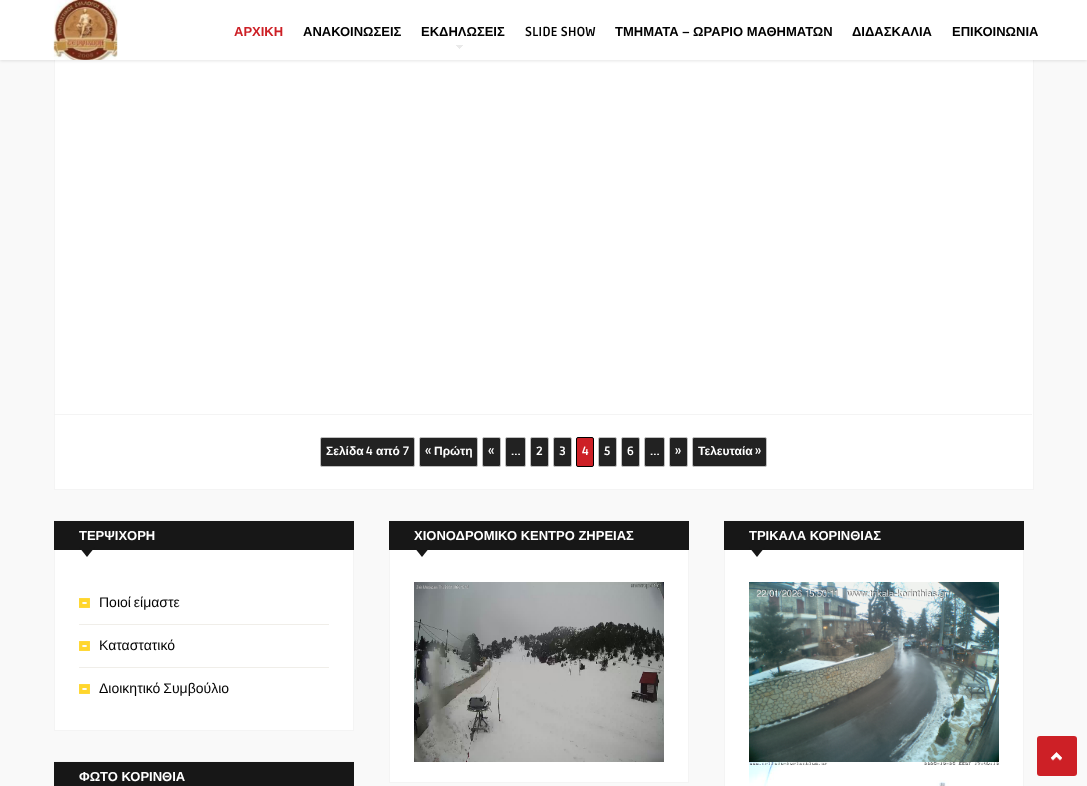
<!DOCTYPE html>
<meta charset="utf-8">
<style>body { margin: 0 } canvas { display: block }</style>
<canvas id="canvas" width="1087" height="786"></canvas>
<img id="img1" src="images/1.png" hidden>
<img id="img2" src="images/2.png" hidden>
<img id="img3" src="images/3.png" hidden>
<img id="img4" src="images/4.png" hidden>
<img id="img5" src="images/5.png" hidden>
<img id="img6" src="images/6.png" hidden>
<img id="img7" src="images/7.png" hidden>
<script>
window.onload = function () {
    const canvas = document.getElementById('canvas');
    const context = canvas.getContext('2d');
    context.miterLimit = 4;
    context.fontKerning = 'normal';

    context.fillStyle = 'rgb(249, 249, 249)';
    context.fillRect(0, 0, 1087, 786);
    context.fillStyle = 'rgb(255, 255, 255)';
    context.fillRect(55, 60, 978, 429);
    context.strokeStyle = 'rgb(244, 244, 244)';
    context.strokeRect(54.5, -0.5, 979, 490);
    context.fillStyle = 'rgba(0, 0, 0, 0.1)';
    context.filter = 'blur(1.5px)';
    context.beginPath();
    context.rect(0, 1, 1087, 60);
    context.fill();
    context.filter = 'none';
    context.fillStyle = 'rgb(255, 255, 255)';
    context.fillRect(0, 0, 1087, 60);
    context.drawImage(document.getElementById('img1'), 53, 0, 65, 60);
    context.drawImage(document.getElementById('img2'), 456, 45, 7, 4);
    context.fillStyle = 'rgba(241, 241, 241, 0.8)';
    context.fillRect(54, 414, 978, 1);
    context.fillStyle = 'rgb(34, 34, 34)';
    context.beginPath();
    context.roundRect(320.5, 437.5, 94, 29, 1.5);
    context.fill();
    context.strokeStyle = 'rgb(191, 191, 191)';
    context.stroke();
    context.beginPath();
    context.roundRect(419.5, 437.5, 58, 29, 1.5);
    context.fill();
    context.stroke();
    context.beginPath();
    context.roundRect(482.5, 437.5, 18, 29, 1.5);
    context.fill();
    context.stroke();
    context.beginPath();
    context.roundRect(505.5, 437.5, 20, 29, 1.5);
    context.fill();
    context.stroke();
    context.beginPath();
    context.roundRect(530.5, 437.5, 18, 29, 1.5);
    context.fill();
    context.stroke();
    context.beginPath();
    context.roundRect(553.5, 437.5, 18, 29, 1.5);
    context.fill();
    context.stroke();
    context.fillStyle = 'rgb(205, 32, 38)';
    context.beginPath();
    context.roundRect(576.5, 437.5, 17, 29, 1.5);
    context.fill();
    context.strokeStyle = 'rgb(0, 0, 0)';
    context.stroke();
    context.fillStyle = 'rgb(34, 34, 34)';
    context.beginPath();
    context.roundRect(598.5, 437.5, 18, 29, 1.5);
    context.fill();
    context.strokeStyle = 'rgb(191, 191, 191)';
    context.stroke();
    context.beginPath();
    context.roundRect(621.5, 437.5, 18, 29, 1.5);
    context.fill();
    context.stroke();
    context.beginPath();
    context.roundRect(644.5, 437.5, 20, 29, 1.5);
    context.fill();
    context.stroke();
    context.beginPath();
    context.roundRect(669.5, 437.5, 18, 29, 1.5);
    context.fill();
    context.stroke();
    context.beginPath();
    context.roundRect(692.5, 437.5, 74, 29, 1.5);
    context.fill();
    context.stroke();
    context.fillStyle = 'rgb(255, 255, 255)';
    context.fillRect(55, 550, 298, 180);
    context.strokeStyle = 'rgb(244, 244, 244)';
    context.strokeRect(54.5, 520.5, 299, 210);
    context.fillStyle = 'rgb(23, 23, 23)';
    context.fillRect(54, 521, 300, 29);
    context.beginPath();
    context.moveTo(79, 547);
    context.lineTo(95, 547);
    context.lineTo(87, 557);
    context.closePath();
    context.fill();
    context.drawImage(document.getElementById('img3'), 79, 598, 11, 10);
    context.fillStyle = 'rgb(240, 238, 233)';
    context.fillRect(79, 624, 250, 1);
    context.drawImage(document.getElementById('img3'), 79, 641, 11, 10);
    context.fillRect(79, 667, 250, 1);
    context.drawImage(document.getElementById('img3'), 79, 684, 11, 10);
    context.fillStyle = 'rgb(255, 255, 255)';
    context.fillRect(390, 550, 298, 232);
    context.strokeRect(389.5, 520.5, 299, 262);
    context.fillStyle = 'rgb(23, 23, 23)';
    context.fillRect(389, 521, 300, 29);
    context.beginPath();
    context.moveTo(414, 547);
    context.lineTo(430, 547);
    context.lineTo(422, 557);
    context.closePath();
    context.fill();
    context.drawImage(document.getElementById('img4'), 414, 582, 250, 180);
    context.fillStyle = 'rgb(255, 255, 255)';
    context.fillRect(725, 550, 298, 236);
    context.strokeRect(724.5, 520.5, 299, 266);
    context.fillStyle = 'rgb(23, 23, 23)';
    context.fillRect(724, 521, 300, 29);
    context.beginPath();
    context.moveTo(749, 547);
    context.lineTo(765, 547);
    context.lineTo(757, 557);
    context.closePath();
    context.fill();
    context.drawImage(document.getElementById('img5'), 749, 582, 250, 180);
    context.drawImage(document.getElementById('img6'), 749, 762, 250, 24);
    context.strokeRect(54.5, 761.5, 299, 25);
    context.fillRect(54, 762, 300, 24);
    context.fillStyle = 'rgb(205, 32, 38)';
    context.beginPath();
    context.roundRect(1037, 736, 40, 40, 3);
    context.fill();
    context.drawImage(document.getElementById('img7'), 1050, 752, 12, 9);
    context.font = 'bold 13px Liberation Sans';
    context.fillText('ΑΡΧΙΚΗ', 234, 36);
    context.fillStyle = 'rgb(0, 0, 0)';
    context.fillText('ΑΝΑΚΟΙΝΩΣΕΙΣ', 303, 36);
    context.fillText('ΕΚΔΗΛΩΣΕΙΣ', 421, 36);
    context.font = 'bold 13px Ruda';
    context.fillText('SLIDE SHOW', 525, 36);
    context.font = 'bold 13px Liberation Sans';
    context.fillText('ΤΜΗΜΑΤΑ – ΩΡΑΡΙΟ ΜΑΘΗΜΑΤΩΝ', 615, 36);
    context.fillText('ΔΙΔΑΣΚΑΛΙΑ', 852, 36);
    context.fillText('ΕΠΙΚΟΙΝΩΝΙΑ', 952, 36);
    context.font = 'bold 12px Liberation Sans';
    context.fillStyle = 'rgb(255, 255, 255)';
    context.fillText('Σελίδα', 326, 455);
    context.font = 'bold 12px Ruda';
    context.fillText('4', 366, 455);
    context.font = 'bold 12px Liberation Sans';
    context.fillText('από', 376, 455);
    context.font = 'bold 12px Ruda';
    context.fillText('7', 403, 455);
    context.fillText('«', 425, 455);
    context.font = 'bold 12px Liberation Sans';
    context.fillText('Πρώτη', 434, 455);
    context.font = 'bold 12px Ruda';
    context.fillText('«', 488, 455);
    context.fillText('...', 511, 455);
    context.fillText('2', 536, 455);
    context.fillText('3', 559, 455);
    context.fillText('4', 582, 455);
    context.fillText('5', 604, 455);
    context.fillText('6', 627, 455);
    context.fillText('...', 650, 455);
    context.fillText('»', 675, 455);
    context.font = 'bold 12px Liberation Sans';
    context.fillText('Τελευταία', 698, 455);
    context.font = 'bold 12px Ruda';
    context.fillText('»', 755, 455);
    context.font = 'bold 13px Liberation Sans';
    context.fillText('ΤΕΡΨΙΧΟΡΗ', 79, 540);
    context.wordSpacing = '-1px';
    context.font = '14px Liberation Sans';
    context.fillStyle = 'rgb(0, 0, 0)';
    context.fillText('Ποιοί είμαστε', 99, 607);
    context.wordSpacing = '0px';
    context.fillText('Καταστατικό', 99, 650);
    context.wordSpacing = '-1px';
    context.fillText('Διοικητικό Συμβούλιο', 99, 693);
    context.wordSpacing = '0px';
    context.font = 'bold 13px Liberation Sans';
    context.fillStyle = 'rgb(255, 255, 255)';
    context.fillText('ΧΙΟΝΟΔΡΟΜΙΚΟ ΚΕΝΤΡΟ ΖΗΡΕΙΑΣ', 414, 540);
    context.fillText('ΤΡΙΚΑΛΑ ΚΟΡΙΝΘΙΑΣ', 749, 540);
    context.fillText('ΦΩΤΟ ΚΟΡΙΝΘΙΑ', 79, 781);
};
</script>
